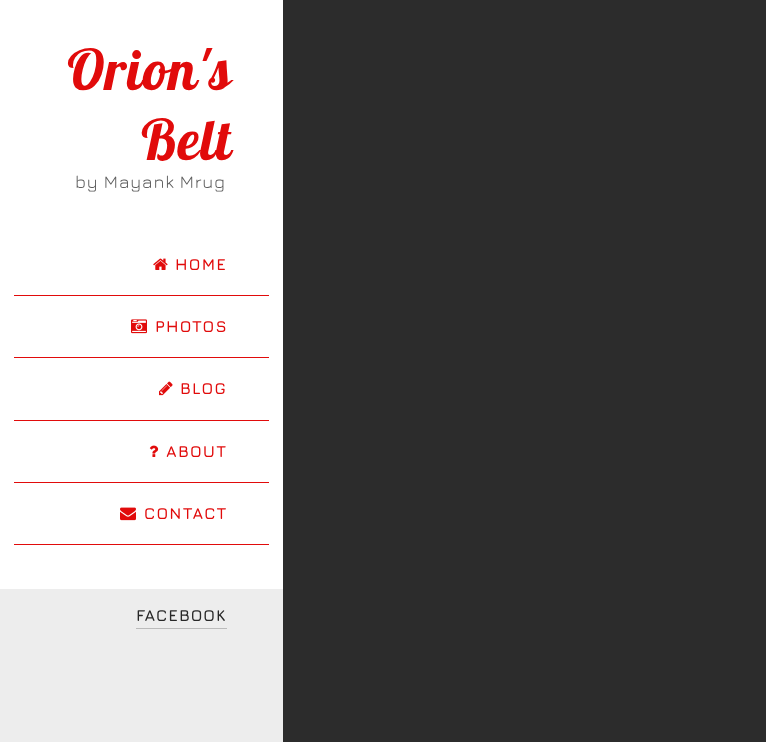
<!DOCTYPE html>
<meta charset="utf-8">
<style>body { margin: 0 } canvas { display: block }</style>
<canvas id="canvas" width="766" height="742"></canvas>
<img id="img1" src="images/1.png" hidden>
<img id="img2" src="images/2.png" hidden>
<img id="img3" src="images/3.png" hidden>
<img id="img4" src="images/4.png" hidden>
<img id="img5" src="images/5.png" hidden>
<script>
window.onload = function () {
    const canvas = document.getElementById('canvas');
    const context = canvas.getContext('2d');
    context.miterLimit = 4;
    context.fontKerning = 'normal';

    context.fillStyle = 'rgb(44, 44, 44)';
    context.fillRect(0, 0, 766, 742);
    context.fillStyle = 'rgb(255, 255, 255)';
    context.fillRect(0, 0, 283, 589);
    context.fillStyle = 'rgb(225, 11, 11)';
    context.fillRect(14, 295, 255, 1);
    context.drawImage(document.getElementById('img1'), 153, 258, 15, 12);
    context.fillRect(14, 357, 255, 1);
    context.drawImage(document.getElementById('img2'), 131, 319, 16, 15);
    context.fillRect(14, 420, 255, 1);
    context.drawImage(document.getElementById('img3'), 159, 381, 14, 15);
    context.fillRect(14, 482, 255, 1);
    context.drawImage(document.getElementById('img4'), 149, 445, 10, 12);
    context.fillRect(14, 544, 255, 1);
    context.drawImage(document.getElementById('img5'), 120, 507, 16, 14);
    context.fillStyle = 'rgb(237, 237, 237)';
    context.fillRect(0, 589, 283, 153);
    context.fillStyle = 'rgb(187, 187, 187)';
    context.fillRect(136, 628, 91, 1);
    context.letterSpacing = '1px';
    context.font = '56px Lobster';
    context.fillStyle = 'rgb(225, 11, 11)';
    context.fillText('Orion\'s', 67, 90);
    context.fillText('Belt', 141, 160);
    context.letterSpacing = '0.75px';
    context.font = '18px Jura';
    context.fillStyle = 'rgb(94, 94, 94)';
    context.fillText('by Mayank Mrug', 75, 188);
    context.letterSpacing = '1.25px';
    context.font = 'bold 16px Jura';
    context.fillStyle = 'rgb(225, 11, 11)';
    context.fillText('HOME', 175, 270);
    context.fillText('PHOTOS', 155, 332);
    context.fillText('BLOG', 180, 394);
    context.fillText('ABOUT', 166, 457);
    context.fillText('CONTACT', 144, 519);
    context.letterSpacing = '1px';
    context.fillStyle = 'rgb(40, 40, 40)';
    context.fillText('FACEBOOK', 136, 621);
};
</script>
